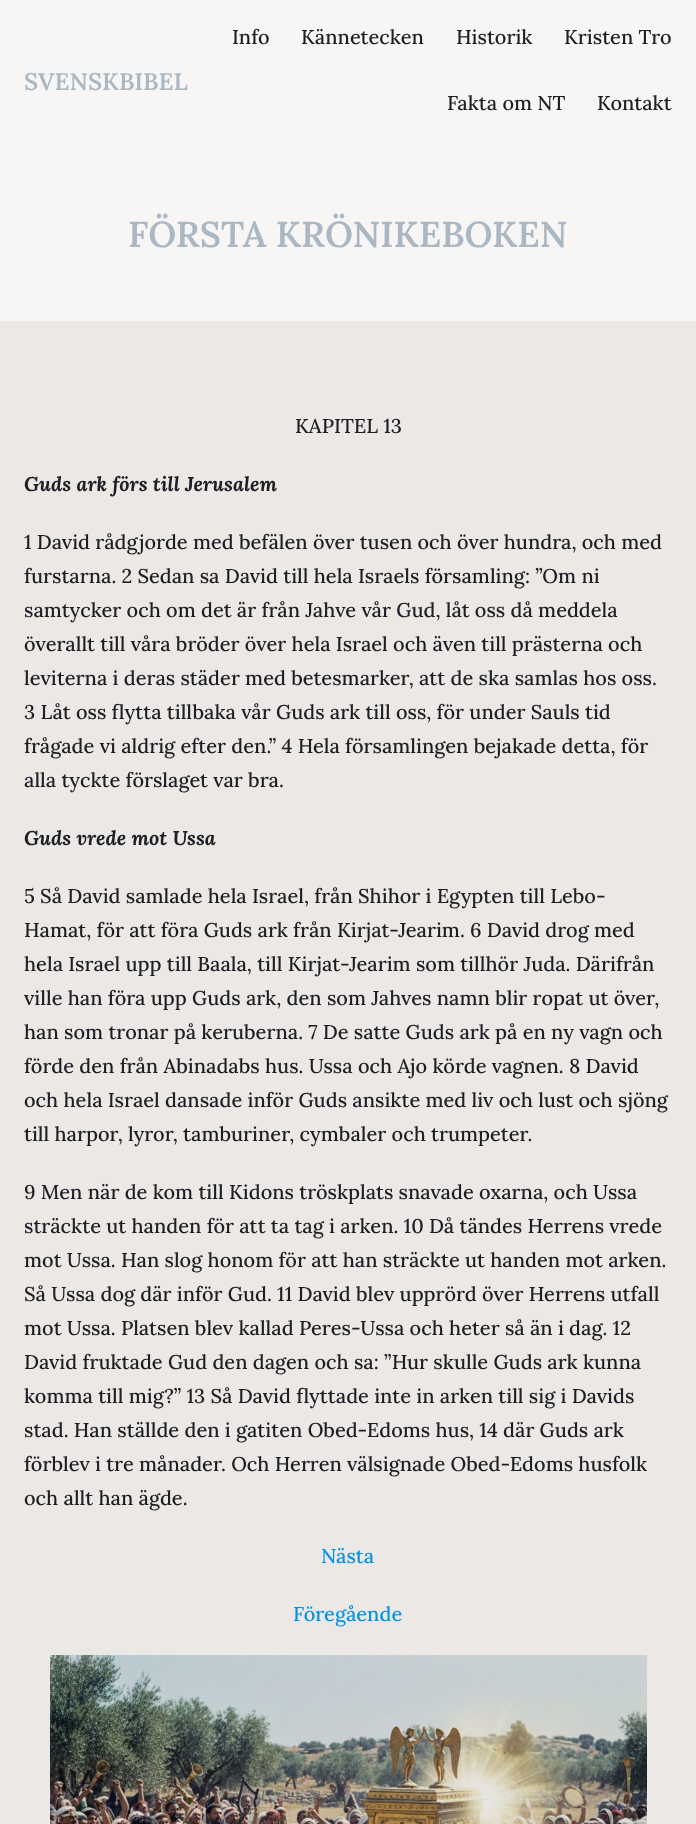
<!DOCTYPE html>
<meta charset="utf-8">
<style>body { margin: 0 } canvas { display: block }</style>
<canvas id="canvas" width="696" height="1824"></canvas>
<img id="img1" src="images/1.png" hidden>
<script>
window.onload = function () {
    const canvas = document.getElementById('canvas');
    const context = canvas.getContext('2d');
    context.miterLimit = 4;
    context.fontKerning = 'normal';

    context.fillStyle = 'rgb(235, 232, 230)';
    context.fillRect(0, 0, 696, 1824);
    context.fillStyle = 'rgb(247, 246, 245)';
    context.fillRect(0, 0, 696, 321);
    context.drawImage(document.getElementById('img1'), 50, 1655, 597, 169);
    context.font = '600 24px Lora';
    context.fillStyle = 'rgb(171, 184, 195)';
    context.fillText('SVENSKBIBEL', 24, 90);
    context.font = '500 20px Lora';
    context.fillStyle = 'rgb(29, 31, 37)';
    context.fillText('Info', 232, 44);
    context.fillText('Kännetecken', 301, 44);
    context.fillText('Historik', 456, 44);
    context.fillText('Kristen Tro', 564, 44);
    context.fillText('Fakta om NT', 447, 110);
    context.fillText('Kontakt', 597, 110);
    context.font = '600 36px Lora';
    context.fillStyle = 'rgb(171, 184, 195)';
    context.fillText('FÖRSTA KRÖNIKEBOKEN', 128, 247);
    context.font = '500 20px Lora';
    context.fillStyle = 'rgb(29, 31, 37)';
    context.fillText('KAPITEL 13', 295, 433);
    context.font = 'italic bold 20px Lora';
    context.fillText('Guds ark förs till Jerusalem', 24, 491);
    context.font = '500 20px Lora';
    context.fillText('1 David rådgjorde med befälen över tusen och över hundra, och med', 24, 549);
    context.fillText('furstarna. 2 Sedan sa David till hela Israels församling: ”Om ni', 24, 583);
    context.fillText('samtycker och om det är från Jahve vår Gud, låt oss då meddela', 24, 617);
    context.fillText('överallt till våra bröder över hela Israel och även till prästerna och', 24, 651);
    context.fillText('leviterna i deras städer med betesmarker, att de ska samlas hos oss.', 24, 685);
    context.fillText('3 Låt oss flytta tillbaka vår Guds ark till oss, för under Sauls tid', 24, 719);
    context.fillText('frågade vi aldrig efter den.” 4 Hela församlingen bejakade detta, för', 24, 753);
    context.fillText('alla tyckte förslaget var bra.', 24, 787);
    context.font = 'italic bold 20px Lora';
    context.fillText('Guds vrede mot Ussa', 24, 845);
    context.font = '500 20px Lora';
    context.fillText('5 Så David samlade hela Israel, från Shihor i Egypten till Lebo-', 24, 903);
    context.fillText('Hamat, för att föra Guds ark från Kirjat-Jearim. 6 David drog med', 24, 937);
    context.fillText('hela Israel upp till Baala, till Kirjat-Jearim som tillhör Juda. Därifrån', 24, 971);
    context.fillText('ville han föra upp Guds ark, den som Jahves namn blir ropat ut över,', 24, 1005);
    context.fillText('han som tronar på keruberna. 7 De satte Guds ark på en ny vagn och', 24, 1039);
    context.fillText('förde den från Abinadabs hus. Ussa och Ajo körde vagnen. 8 David', 24, 1073);
    context.fillText('och hela Israel dansade inför Guds ansikte med liv och lust och sjöng', 24, 1107);
    context.fillText('till harpor, lyror, tamburiner, cymbaler och trumpeter.', 24, 1141);
    context.fillText('9 Men när de kom till Kidons tröskplats snavade oxarna, och Ussa', 24, 1199);
    context.fillText('sträckte ut handen för att ta tag i arken. 10 Då tändes Herrens vrede', 24, 1233);
    context.fillText('mot Ussa. Han slog honom för att han sträckte ut handen mot arken.', 24, 1267);
    context.fillText('Så Ussa dog där inför Gud. 11 David blev upprörd över Herrens utfall', 24, 1301);
    context.fillText('mot Ussa. Platsen blev kallad Peres-Ussa och heter så än i dag. 12', 24, 1335);
    context.fillText('David fruktade Gud den dagen och sa: ”Hur skulle Guds ark kunna', 24, 1369);
    context.fillText('komma till mig?” 13 Så David flyttade inte in arken till sig i Davids', 24, 1403);
    context.fillText('stad. Han ställde den i gatiten Obed-Edoms hus, 14 där Guds ark', 24, 1437);
    context.fillText('förblev i tre månader. Och Herren välsignade Obed-Edoms husfolk', 24, 1471);
    context.fillText('och allt han ägde.', 24, 1505);
    context.fillStyle = 'rgb(6, 147, 227)';
    context.fillText('Nästa', 321, 1563);
    context.fillText('Föregående', 293, 1621);
};
</script>
